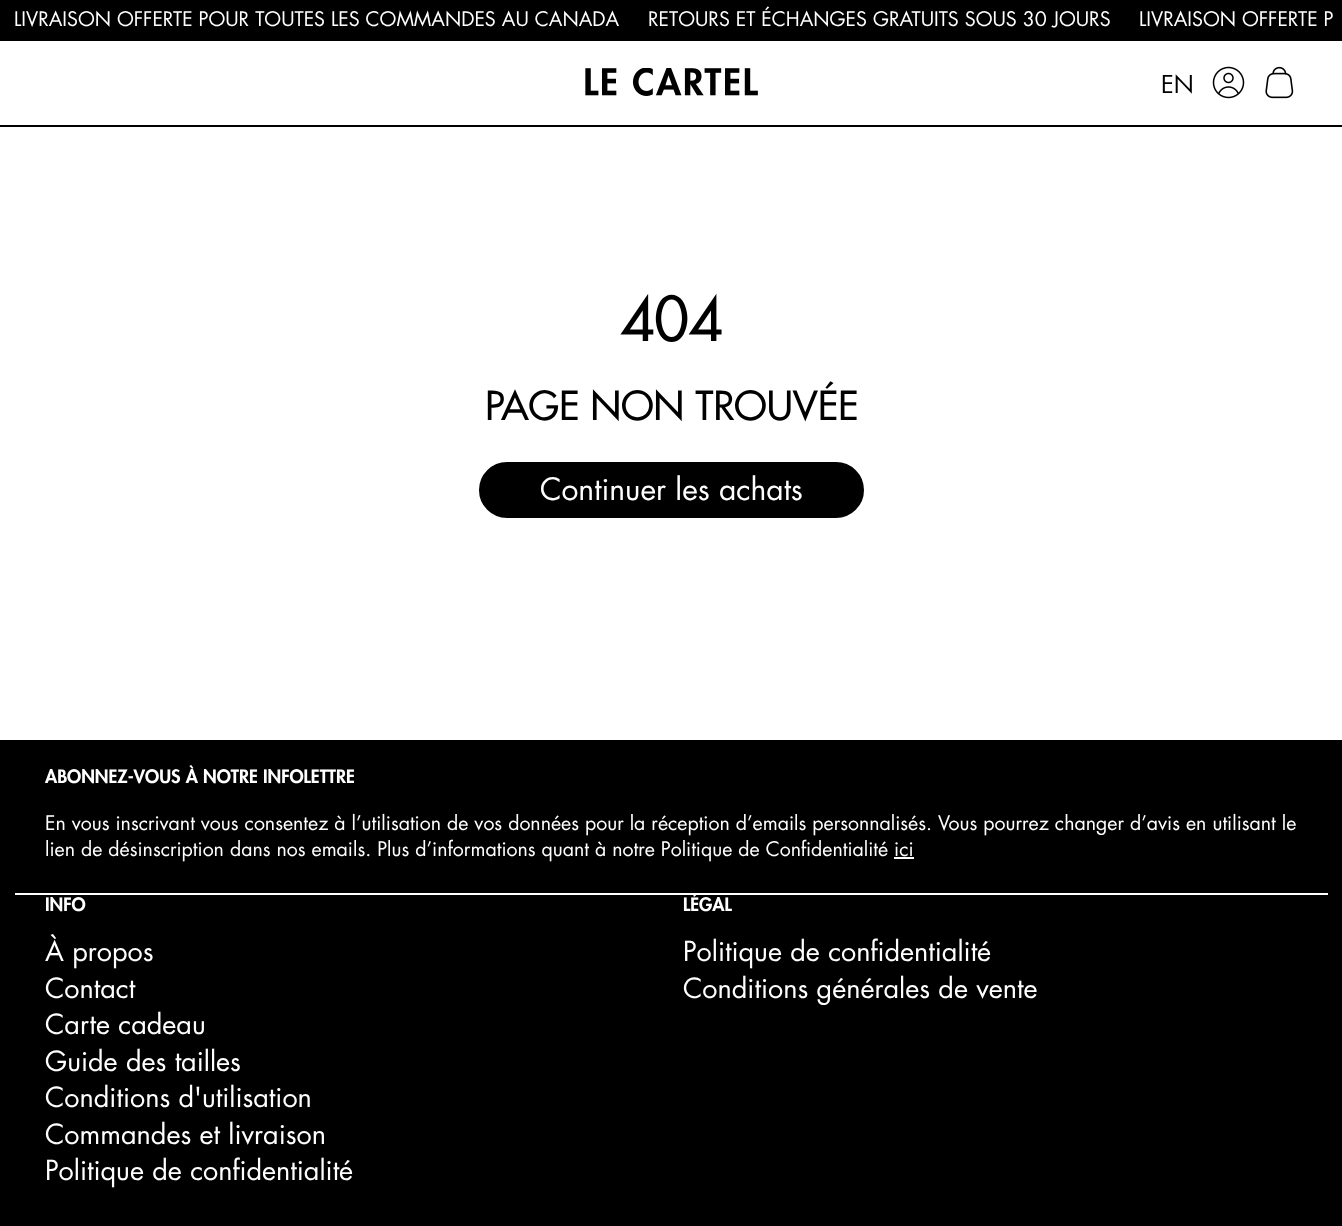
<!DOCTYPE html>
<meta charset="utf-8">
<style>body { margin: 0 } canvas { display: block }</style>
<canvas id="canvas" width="1342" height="1226"></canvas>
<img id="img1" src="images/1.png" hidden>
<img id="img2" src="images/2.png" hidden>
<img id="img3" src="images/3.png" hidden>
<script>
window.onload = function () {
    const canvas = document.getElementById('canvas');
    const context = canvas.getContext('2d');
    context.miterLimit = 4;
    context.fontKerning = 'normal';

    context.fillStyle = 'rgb(255, 255, 255)';
    context.fillRect(0, 0, 1342, 1226);
    context.fillStyle = 'rgb(0, 0, 0)';
    context.fillRect(0, 0, 1342, 41);
    context.fillRect(0, 125, 1342, 2);
    context.drawImage(document.getElementById('img1'), 585, 68, 173, 28);
    context.drawImage(document.getElementById('img2'), 1212, 66, 33, 33);
    context.drawImage(document.getElementById('img3'), 1265, 66, 29, 33);
    context.beginPath();
    context.roundRect(480, 463, 383, 54, 27);
    context.fill();
    context.strokeStyle = 'rgb(0, 0, 0)';
    context.lineWidth = 2;
    context.stroke();
    context.fillRect(0, 740, 1342, 486);
    context.fillStyle = 'rgb(255, 255, 255)';
    context.fillRect(15, 893, 1313, 2);
    context.fillRect(894, 857, 20, 2);
    context.font = '19.5px Futura';
    context.fillText('LIVRAISON OFFERTE POUR TOUTES LES COMMANDES AU CANADA', 14, 26);
    context.fillText('RETOURS ET ÉCHANGES GRATUITS SOUS 30 JOURS', 648, 26);
    context.fillText('LIVRAISON OFFERTE P', 1139, 26);
    context.font = '24px Futura';
    context.fillStyle = 'rgb(0, 0, 0)';
    context.fillText('EN', 1161, 93);
    context.letterSpacing = '-0.5px';
    context.font = '500 60px Futura';
    context.fillText('404', 620, 341);
    context.letterSpacing = '0px';
    context.font = '500 39px Futura';
    context.fillText('PAGE NON TROUVÉE', 485, 420);
    context.font = '30px Futura';
    context.fillStyle = 'rgb(255, 255, 255)';
    context.fillText('Continuer les achats', 540, 500);
    context.font = '900 18px Futura';
    context.fillText('ABONNEZ-VOUS À NOTRE INFOLETTRE', 45, 783);
    context.font = '19.5px Futura';
    context.fillText('En vous inscrivant vous consentez à l’utilisation de vos données pour la réception d’emails personnalisés. Vous pourrez changer d’avis en utilisant le', 45, 830);
    context.fillText('lien de désinscription dans nos emails. Plus d’informations quant à notre Politique de Confidentialité ici', 45, 856);
    context.font = '900 18px Futura';
    context.fillText('INFO', 45, 911);
    context.font = '27px Futura';
    context.fillText('À propos', 45, 961);
    context.fillText('Contact', 45, 998);
    context.fillText('Carte cadeau', 45, 1034);
    context.fillText('Guide des tailles', 45, 1071);
    context.fillText('Conditions d\'utilisation', 45, 1107);
    context.fillText('Commandes et livraison', 45, 1144);
    context.fillText('Politique de confidentialité', 45, 1180);
    context.font = '900 18px Futura';
    context.fillText('LÉGAL', 683, 911);
    context.font = '27px Futura';
    context.fillText('Politique de confidentialité', 683, 961);
    context.fillText('Conditions générales de vente', 683, 998);
};
</script>
